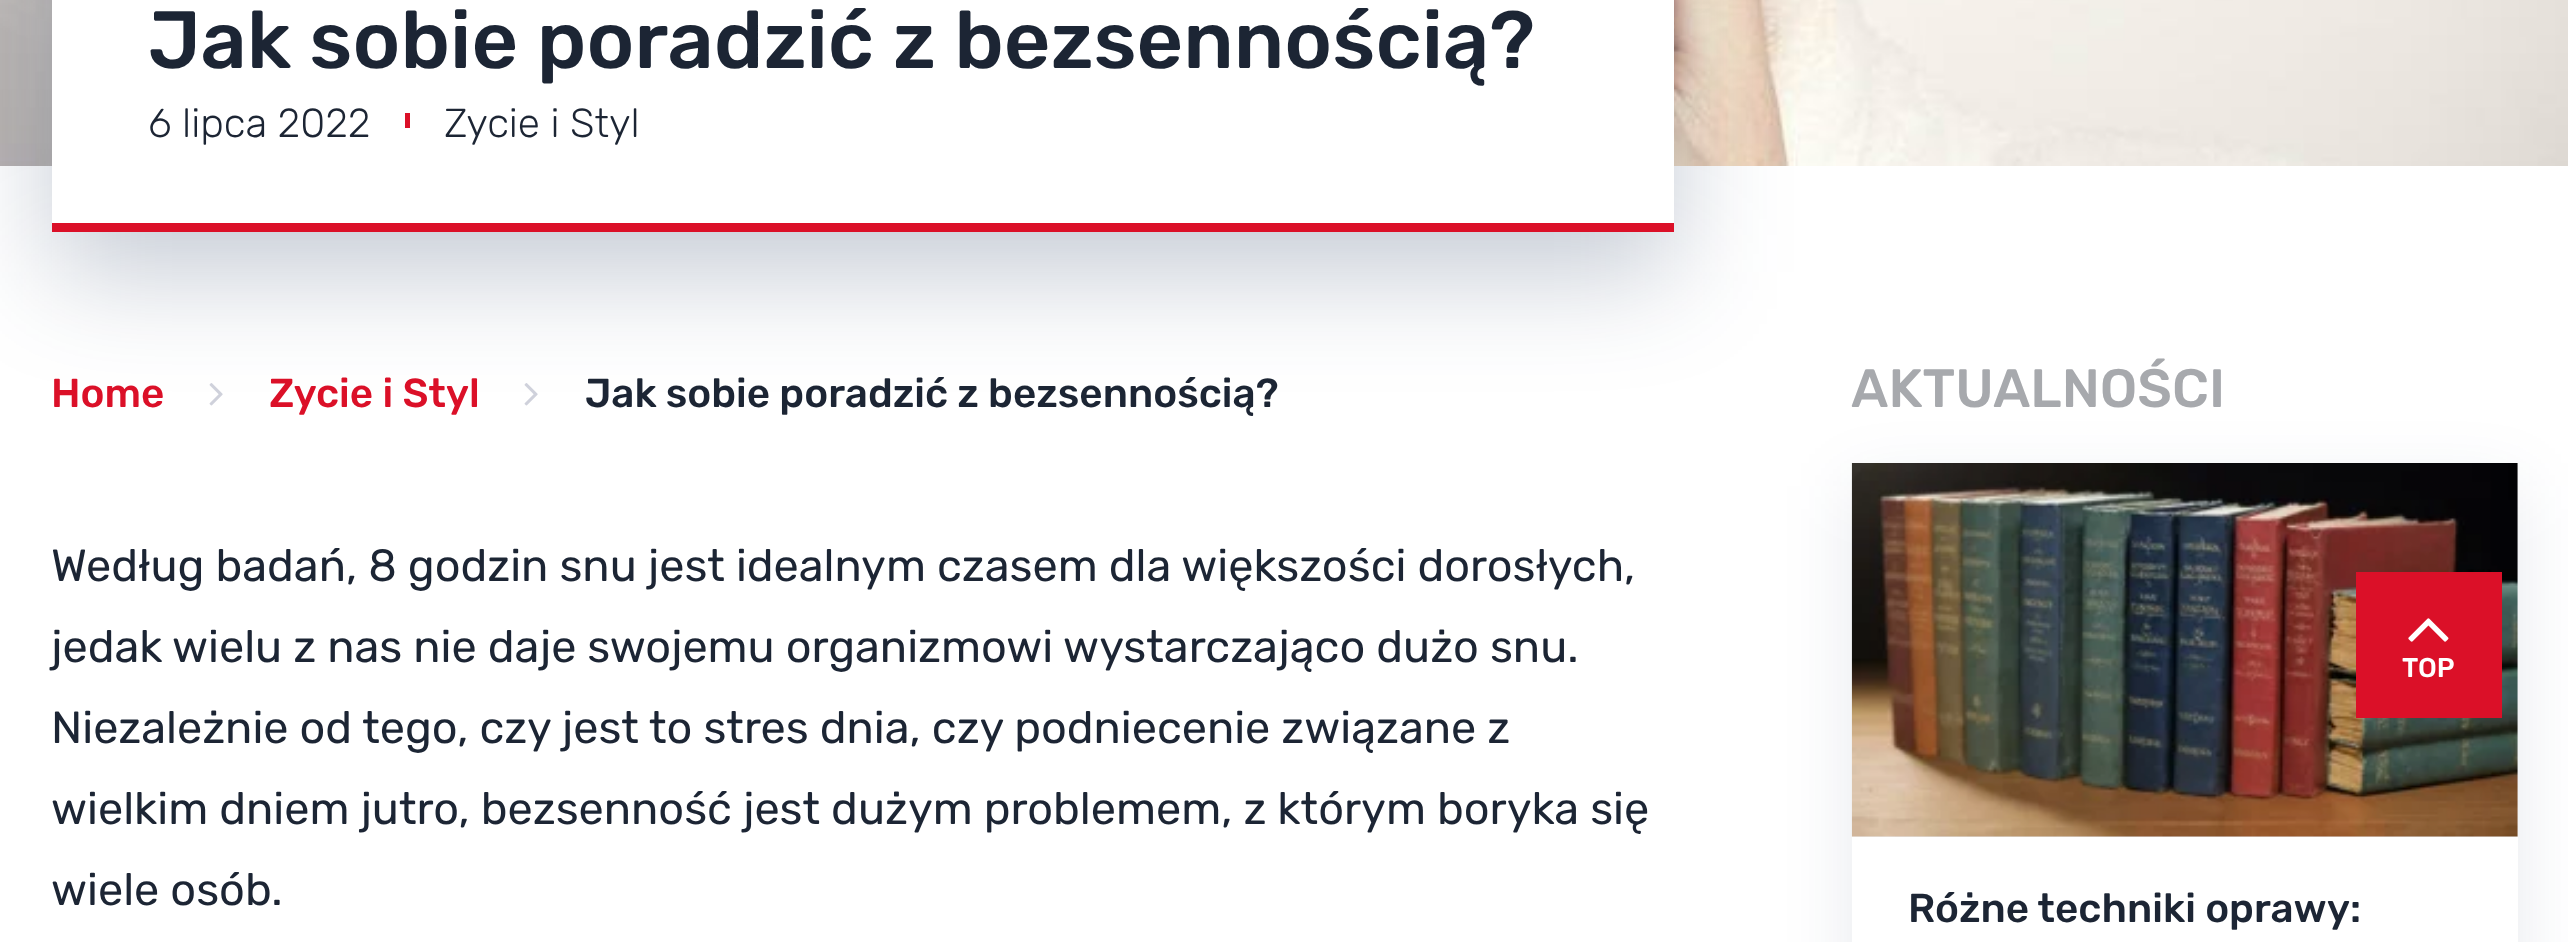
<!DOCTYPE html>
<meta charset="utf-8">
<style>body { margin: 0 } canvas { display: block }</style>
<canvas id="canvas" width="2568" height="942"></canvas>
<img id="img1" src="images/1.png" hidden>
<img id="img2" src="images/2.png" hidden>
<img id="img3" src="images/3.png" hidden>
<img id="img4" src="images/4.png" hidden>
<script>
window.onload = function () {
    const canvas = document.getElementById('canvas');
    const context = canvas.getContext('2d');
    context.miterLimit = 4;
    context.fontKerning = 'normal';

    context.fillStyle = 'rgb(255, 255, 255)';
    context.fillRect(0, 0, 2568, 942);
    context.drawImage(document.getElementById('img1'), 0, 0, 2568, 166);
    context.fillStyle = 'rgba(20, 44, 85, 0.25)';
    context.filter = 'blur(56px)';
    context.beginPath();
    context.rect(52, -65, 1622, 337);
    context.fill();
    context.filter = 'none';
    context.fillStyle = 'rgb(255, 255, 255)';
    context.fillRect(52, 0, 1622, 223);
    context.fillStyle = 'rgb(219, 16, 40)';
    context.fillRect(52, 223, 1622, 9);
    context.fillRect(405, 113, 5, 15);
    context.drawImage(document.getElementById('img2'), 209, 383, 14, 23);
    context.drawImage(document.getElementById('img2'), 524, 383, 14, 23);
    context.fillStyle = 'rgba(20, 44, 85, 0.1)';
    context.filter = 'blur(34px)';
    context.beginPath();
    context.rect(1852, 486, 666, 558);
    context.fill();
    context.filter = 'none';
    context.drawImage(document.getElementById('img3'), 1851, 463, 667, 374);
    context.fillStyle = 'rgb(255, 255, 255)';
    context.fillRect(1852, 837, 666, 105);
    context.fillStyle = 'rgb(219, 16, 40)';
    context.fillRect(2356, 572, 146, 146);
    context.drawImage(document.getElementById('img4'), 2408, 618, 41, 24);
    context.font = '500 81px Rubik';
    context.fillStyle = 'rgb(28, 37, 52)';
    context.fillText('Jak sobie poradzić z bezsennością?', 148, 68);
    context.font = '300 40.5px Rubik';
    context.fillText('6 lipca 2022', 148, 137);
    context.fillText('Zycie i Styl', 444, 137);
    context.font = '500 40.5px Rubik';
    context.fillStyle = 'rgb(219, 16, 40)';
    context.fillText('Home', 51, 407);
    context.fillText('Zycie i Styl', 269, 407);
    context.fillStyle = 'rgb(28, 37, 52)';
    context.fillText('Jak sobie poradzić z bezsennością?', 585, 407);
    context.font = '45px Rubik';
    context.fillText('Według badań, 8 godzin snu jest idealnym czasem dla większości dorosłych,', 51, 581);
    context.fillText('jedak wielu z nas nie daje swojemu organizmowi wystarczająco dużo snu.', 51, 662);
    context.fillText('Niezależnie od tego, czy jest to stres dnia, czy podniecenie związane z', 51, 743);
    context.fillText('wielkim dniem jutro, bezsenność jest dużym problemem, z którym boryka się', 51, 824);
    context.fillText('wiele osób.', 51, 905);
    context.font = '500 54px Rubik';
    context.fillStyle = 'rgb(167, 169, 173)';
    context.fillText('AKTUALNOŚCI', 1851, 407);
    context.font = '500 40.5px Rubik';
    context.fillStyle = 'rgb(28, 37, 52)';
    context.fillText('Różne techniki oprawy:', 1908, 922);
    context.font = '500 27px Rubik';
    context.fillStyle = 'rgb(255, 255, 255)';
    context.fillText('TOP', 2402, 677);
};
</script>
